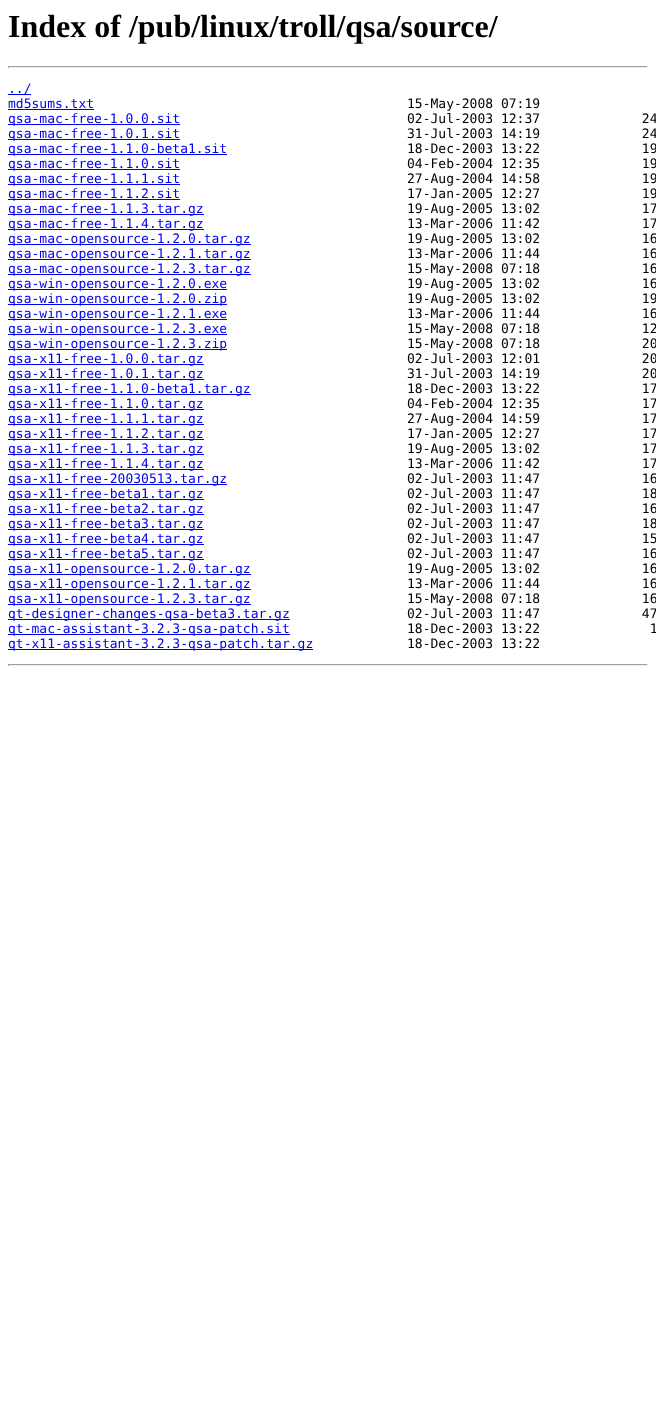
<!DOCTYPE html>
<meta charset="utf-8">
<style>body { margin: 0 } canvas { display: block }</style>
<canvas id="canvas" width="656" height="1405"></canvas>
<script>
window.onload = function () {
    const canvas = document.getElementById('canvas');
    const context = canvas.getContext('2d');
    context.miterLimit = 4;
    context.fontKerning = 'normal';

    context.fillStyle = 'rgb(255, 255, 255)';
    context.fillRect(0, 0, 656, 1405);
    context.fillStyle = 'rgb(159, 159, 159)';
    context.fillRect(8, 66, 640, 1);
    context.fillStyle = 'rgb(238, 238, 238)';
    context.fillRect(647, 66, 1, 2);
    context.fillRect(8, 67, 640, 1);
    context.fillStyle = 'rgb(159, 159, 159)';
    context.fillRect(8, 66, 1, 2);
    context.fillStyle = 'rgb(0, 0, 238)';
    context.fillRect(8, 94, 23, 1);
    context.fillRect(8, 109, 86, 1);
    context.fillRect(8, 124, 172, 1);
    context.fillRect(8, 139, 172, 1);
    context.fillRect(8, 154, 219, 1);
    context.fillRect(8, 169, 172, 1);
    context.fillRect(8, 184, 172, 1);
    context.fillRect(8, 199, 172, 1);
    context.fillRect(8, 214, 196, 1);
    context.fillRect(8, 229, 196, 1);
    context.fillRect(8, 244, 243, 1);
    context.fillRect(8, 259, 243, 1);
    context.fillRect(8, 274, 243, 1);
    context.fillRect(8, 289, 219, 1);
    context.fillRect(8, 304, 219, 1);
    context.fillRect(8, 319, 219, 1);
    context.fillRect(8, 334, 219, 1);
    context.fillRect(8, 349, 219, 1);
    context.fillRect(8, 364, 196, 1);
    context.fillRect(8, 379, 196, 1);
    context.fillRect(8, 394, 243, 1);
    context.fillRect(8, 409, 196, 1);
    context.fillRect(8, 424, 196, 1);
    context.fillRect(8, 439, 196, 1);
    context.fillRect(8, 454, 196, 1);
    context.fillRect(8, 469, 196, 1);
    context.fillRect(8, 484, 219, 1);
    context.fillRect(8, 499, 196, 1);
    context.fillRect(8, 514, 196, 1);
    context.fillRect(8, 529, 196, 1);
    context.fillRect(8, 544, 196, 1);
    context.fillRect(8, 559, 196, 1);
    context.fillRect(8, 574, 243, 1);
    context.fillRect(8, 589, 243, 1);
    context.fillRect(8, 604, 243, 1);
    context.fillRect(8, 619, 282, 1);
    context.fillRect(8, 634, 282, 1);
    context.fillRect(8, 649, 305, 1);
    context.fillStyle = 'rgb(159, 159, 159)';
    context.fillRect(8, 664, 640, 1);
    context.fillStyle = 'rgb(238, 238, 238)';
    context.fillRect(647, 664, 1, 2);
    context.fillRect(8, 665, 640, 1);
    context.fillStyle = 'rgb(159, 159, 159)';
    context.fillRect(8, 664, 1, 2);
    context.font = 'bold 32px Liberation Serif';
    context.fillStyle = 'rgb(0, 0, 0)';
    context.fillText('Index of /pub/linux/troll/qsa/source/', 8, 37);
    context.font = '13px DejaVu Sans Mono';
    context.fillStyle = 'rgb(0, 0, 238)';
    context.fillText('../', 8, 93);
    context.fillText('md5sums.txt', 8, 108);
    context.fillStyle = 'rgb(0, 0, 0)';
    context.fillText('15-May-2008 07:19', 407, 108);
    context.fillStyle = 'rgb(0, 0, 238)';
    context.fillText('qsa-mac-free-1.0.0.sit', 8, 123);
    context.fillStyle = 'rgb(0, 0, 0)';
    context.fillText('02-Jul-2003 12:37             24', 407, 123);
    context.fillStyle = 'rgb(0, 0, 238)';
    context.fillText('qsa-mac-free-1.0.1.sit', 8, 138);
    context.fillStyle = 'rgb(0, 0, 0)';
    context.fillText('31-Jul-2003 14:19             24', 407, 138);
    context.fillStyle = 'rgb(0, 0, 238)';
    context.fillText('qsa-mac-free-1.1.0-beta1.sit', 8, 153);
    context.fillStyle = 'rgb(0, 0, 0)';
    context.fillText('18-Dec-2003 13:22             19', 407, 153);
    context.fillStyle = 'rgb(0, 0, 238)';
    context.fillText('qsa-mac-free-1.1.0.sit', 8, 168);
    context.fillStyle = 'rgb(0, 0, 0)';
    context.fillText('04-Feb-2004 12:35             19', 407, 168);
    context.fillStyle = 'rgb(0, 0, 238)';
    context.fillText('qsa-mac-free-1.1.1.sit', 8, 183);
    context.fillStyle = 'rgb(0, 0, 0)';
    context.fillText('27-Aug-2004 14:58             19', 407, 183);
    context.fillStyle = 'rgb(0, 0, 238)';
    context.fillText('qsa-mac-free-1.1.2.sit', 8, 198);
    context.fillStyle = 'rgb(0, 0, 0)';
    context.fillText('17-Jan-2005 12:27             19', 407, 198);
    context.fillStyle = 'rgb(0, 0, 238)';
    context.fillText('qsa-mac-free-1.1.3.tar.gz', 8, 213);
    context.fillStyle = 'rgb(0, 0, 0)';
    context.fillText('19-Aug-2005 13:02             17', 407, 213);
    context.fillStyle = 'rgb(0, 0, 238)';
    context.fillText('qsa-mac-free-1.1.4.tar.gz', 8, 228);
    context.fillStyle = 'rgb(0, 0, 0)';
    context.fillText('13-Mar-2006 11:42             17', 407, 228);
    context.fillStyle = 'rgb(0, 0, 238)';
    context.fillText('qsa-mac-opensource-1.2.0.tar.gz', 8, 243);
    context.fillStyle = 'rgb(0, 0, 0)';
    context.fillText('19-Aug-2005 13:02             16', 407, 243);
    context.fillStyle = 'rgb(0, 0, 238)';
    context.fillText('qsa-mac-opensource-1.2.1.tar.gz', 8, 258);
    context.fillStyle = 'rgb(0, 0, 0)';
    context.fillText('13-Mar-2006 11:44             16', 407, 258);
    context.fillStyle = 'rgb(0, 0, 238)';
    context.fillText('qsa-mac-opensource-1.2.3.tar.gz', 8, 273);
    context.fillStyle = 'rgb(0, 0, 0)';
    context.fillText('15-May-2008 07:18             16', 407, 273);
    context.fillStyle = 'rgb(0, 0, 238)';
    context.fillText('qsa-win-opensource-1.2.0.exe', 8, 288);
    context.fillStyle = 'rgb(0, 0, 0)';
    context.fillText('19-Aug-2005 13:02             16', 407, 288);
    context.fillStyle = 'rgb(0, 0, 238)';
    context.fillText('qsa-win-opensource-1.2.0.zip', 8, 303);
    context.fillStyle = 'rgb(0, 0, 0)';
    context.fillText('19-Aug-2005 13:02             19', 407, 303);
    context.fillStyle = 'rgb(0, 0, 238)';
    context.fillText('qsa-win-opensource-1.2.1.exe', 8, 318);
    context.fillStyle = 'rgb(0, 0, 0)';
    context.fillText('13-Mar-2006 11:44             16', 407, 318);
    context.fillStyle = 'rgb(0, 0, 238)';
    context.fillText('qsa-win-opensource-1.2.3.exe', 8, 333);
    context.fillStyle = 'rgb(0, 0, 0)';
    context.fillText('15-May-2008 07:18             12', 407, 333);
    context.fillStyle = 'rgb(0, 0, 238)';
    context.fillText('qsa-win-opensource-1.2.3.zip', 8, 348);
    context.fillStyle = 'rgb(0, 0, 0)';
    context.fillText('15-May-2008 07:18             20', 407, 348);
    context.fillStyle = 'rgb(0, 0, 238)';
    context.fillText('qsa-x11-free-1.0.0.tar.gz', 8, 363);
    context.fillStyle = 'rgb(0, 0, 0)';
    context.fillText('02-Jul-2003 12:01             20', 407, 363);
    context.fillStyle = 'rgb(0, 0, 238)';
    context.fillText('qsa-x11-free-1.0.1.tar.gz', 8, 378);
    context.fillStyle = 'rgb(0, 0, 0)';
    context.fillText('31-Jul-2003 14:19             20', 407, 378);
    context.fillStyle = 'rgb(0, 0, 238)';
    context.fillText('qsa-x11-free-1.1.0-beta1.tar.gz', 8, 393);
    context.fillStyle = 'rgb(0, 0, 0)';
    context.fillText('18-Dec-2003 13:22             17', 407, 393);
    context.fillStyle = 'rgb(0, 0, 238)';
    context.fillText('qsa-x11-free-1.1.0.tar.gz', 8, 408);
    context.fillStyle = 'rgb(0, 0, 0)';
    context.fillText('04-Feb-2004 12:35             17', 407, 408);
    context.fillStyle = 'rgb(0, 0, 238)';
    context.fillText('qsa-x11-free-1.1.1.tar.gz', 8, 423);
    context.fillStyle = 'rgb(0, 0, 0)';
    context.fillText('27-Aug-2004 14:59             17', 407, 423);
    context.fillStyle = 'rgb(0, 0, 238)';
    context.fillText('qsa-x11-free-1.1.2.tar.gz', 8, 438);
    context.fillStyle = 'rgb(0, 0, 0)';
    context.fillText('17-Jan-2005 12:27             17', 407, 438);
    context.fillStyle = 'rgb(0, 0, 238)';
    context.fillText('qsa-x11-free-1.1.3.tar.gz', 8, 453);
    context.fillStyle = 'rgb(0, 0, 0)';
    context.fillText('19-Aug-2005 13:02             17', 407, 453);
    context.fillStyle = 'rgb(0, 0, 238)';
    context.fillText('qsa-x11-free-1.1.4.tar.gz', 8, 468);
    context.fillStyle = 'rgb(0, 0, 0)';
    context.fillText('13-Mar-2006 11:42             17', 407, 468);
    context.fillStyle = 'rgb(0, 0, 238)';
    context.fillText('qsa-x11-free-20030513.tar.gz', 8, 483);
    context.fillStyle = 'rgb(0, 0, 0)';
    context.fillText('02-Jul-2003 11:47             16', 407, 483);
    context.fillStyle = 'rgb(0, 0, 238)';
    context.fillText('qsa-x11-free-beta1.tar.gz', 8, 498);
    context.fillStyle = 'rgb(0, 0, 0)';
    context.fillText('02-Jul-2003 11:47             18', 407, 498);
    context.fillStyle = 'rgb(0, 0, 238)';
    context.fillText('qsa-x11-free-beta2.tar.gz', 8, 513);
    context.fillStyle = 'rgb(0, 0, 0)';
    context.fillText('02-Jul-2003 11:47             16', 407, 513);
    context.fillStyle = 'rgb(0, 0, 238)';
    context.fillText('qsa-x11-free-beta3.tar.gz', 8, 528);
    context.fillStyle = 'rgb(0, 0, 0)';
    context.fillText('02-Jul-2003 11:47             18', 407, 528);
    context.fillStyle = 'rgb(0, 0, 238)';
    context.fillText('qsa-x11-free-beta4.tar.gz', 8, 543);
    context.fillStyle = 'rgb(0, 0, 0)';
    context.fillText('02-Jul-2003 11:47             15', 407, 543);
    context.fillStyle = 'rgb(0, 0, 238)';
    context.fillText('qsa-x11-free-beta5.tar.gz', 8, 558);
    context.fillStyle = 'rgb(0, 0, 0)';
    context.fillText('02-Jul-2003 11:47             16', 407, 558);
    context.fillStyle = 'rgb(0, 0, 238)';
    context.fillText('qsa-x11-opensource-1.2.0.tar.gz', 8, 573);
    context.fillStyle = 'rgb(0, 0, 0)';
    context.fillText('19-Aug-2005 13:02             16', 407, 573);
    context.fillStyle = 'rgb(0, 0, 238)';
    context.fillText('qsa-x11-opensource-1.2.1.tar.gz', 8, 588);
    context.fillStyle = 'rgb(0, 0, 0)';
    context.fillText('13-Mar-2006 11:44             16', 407, 588);
    context.fillStyle = 'rgb(0, 0, 238)';
    context.fillText('qsa-x11-opensource-1.2.3.tar.gz', 8, 603);
    context.fillStyle = 'rgb(0, 0, 0)';
    context.fillText('15-May-2008 07:18             16', 407, 603);
    context.fillStyle = 'rgb(0, 0, 238)';
    context.fillText('qt-designer-changes-qsa-beta3.tar.gz', 8, 618);
    context.fillStyle = 'rgb(0, 0, 0)';
    context.fillText('02-Jul-2003 11:47             47', 407, 618);
    context.fillStyle = 'rgb(0, 0, 238)';
    context.fillText('qt-mac-assistant-3.2.3-qsa-patch.sit', 8, 633);
    context.fillStyle = 'rgb(0, 0, 0)';
    context.fillText('18-Dec-2003 13:22              1', 407, 633);
    context.fillStyle = 'rgb(0, 0, 238)';
    context.fillText('qt-x11-assistant-3.2.3-qsa-patch.tar.gz', 8, 648);
    context.fillStyle = 'rgb(0, 0, 0)';
    context.fillText('18-Dec-2003 13:22', 407, 648);
};
</script>
